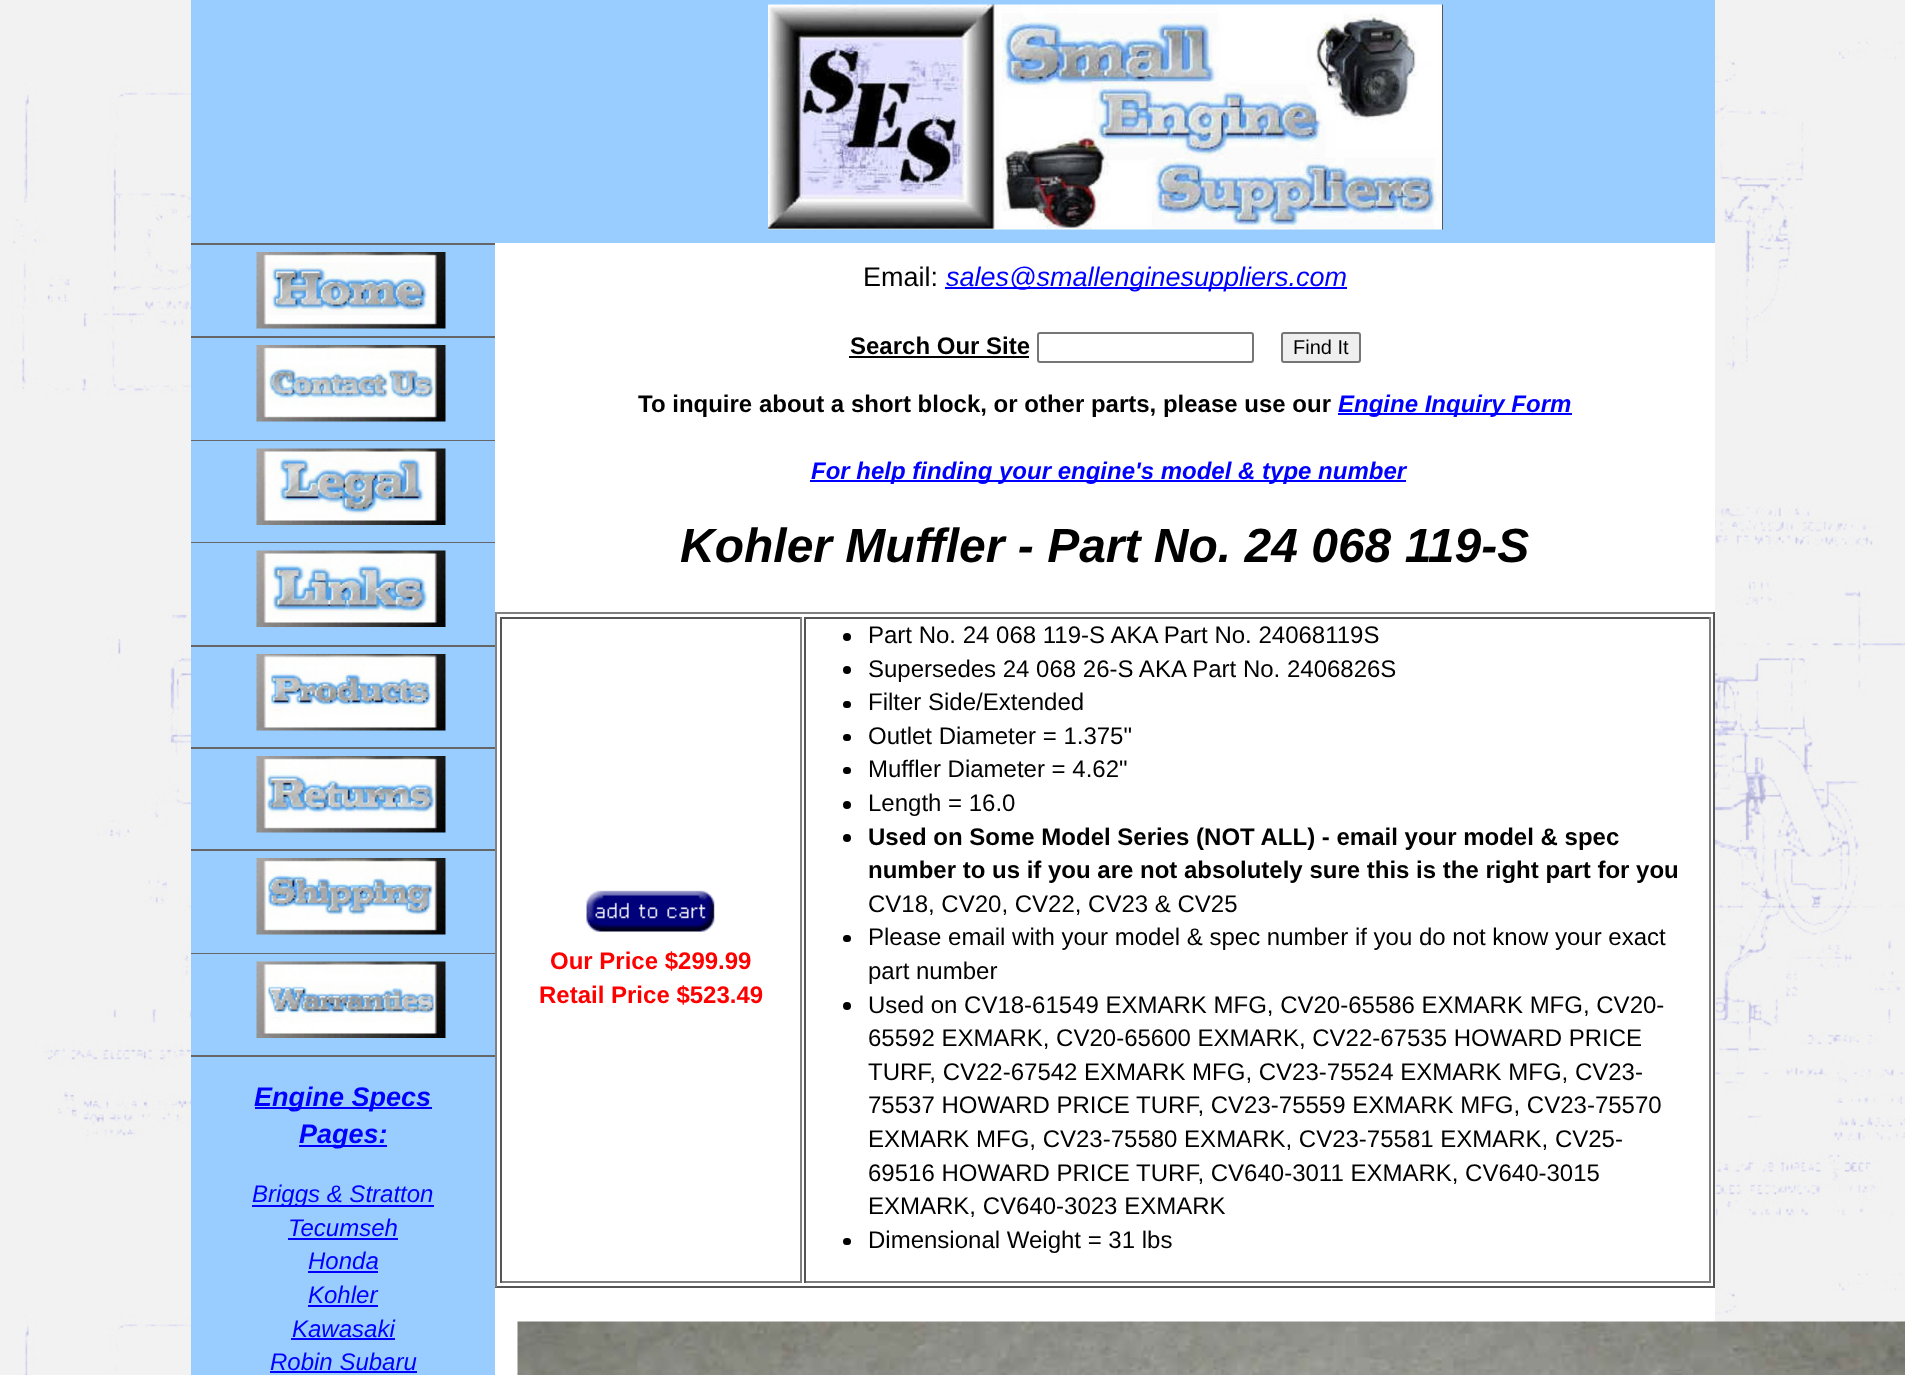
<!DOCTYPE html>
<meta charset="utf-8">
<style>body { margin: 0 } canvas { display: block }</style>
<canvas id="canvas" width="1905" height="1375"></canvas>
<img id="img1" src="images/1.png" hidden>
<img id="img2" src="images/2.png" hidden>
<img id="img3" src="images/3.png" hidden>
<img id="img4" src="images/4.png" hidden>
<img id="img5" src="images/5.png" hidden>
<img id="img6" src="images/6.png" hidden>
<img id="img7" src="images/7.png" hidden>
<img id="img8" src="images/8.png" hidden>
<img id="img9" src="images/9.png" hidden>
<img id="img10" src="images/10.png" hidden>
<img id="img11" src="images/11.png" hidden>
<img id="img12" src="images/12.png" hidden>
<script>
window.onload = function () {
    const canvas = document.getElementById('canvas');
    const context = canvas.getContext('2d');
    context.miterLimit = 4;
    context.fontKerning = 'normal';

    context.fillStyle = 'rgb(255, 255, 255)';
    context.fillRect(0, 0, 1905, 1375);
    context.drawImage(document.getElementById('img1'), 0, 0, 1905, 1375);
    context.fillRect(495, 243, 1220, 1132);
    context.fillStyle = 'rgb(153, 204, 255)';
    context.fillRect(191, 0, 1524, 243);
    context.drawImage(document.getElementById('img2'), 768, 4, 675, 226);
    context.fillRect(191, 245, 304, 1130);
    context.fillStyle = 'rgb(102, 102, 102)';
    context.fillRect(191, 243, 304, 2);
    context.fillRect(191, 336, 304, 2);
    context.drawImage(document.getElementById('img3'), 256, 252, 190, 77);
    context.fillRect(191, 440, 304, 1);
    context.drawImage(document.getElementById('img4'), 256, 345, 190, 77);
    context.fillRect(191, 542, 304, 1);
    context.drawImage(document.getElementById('img5'), 256, 448, 190, 77);
    context.fillRect(191, 645, 304, 2);
    context.drawImage(document.getElementById('img6'), 256, 550, 190, 77);
    context.fillRect(191, 747, 304, 2);
    context.drawImage(document.getElementById('img7'), 256, 654, 190, 77);
    context.fillRect(191, 849, 304, 2);
    context.drawImage(document.getElementById('img8'), 256, 756, 190, 77);
    context.fillRect(191, 953, 304, 1);
    context.drawImage(document.getElementById('img9'), 256, 858, 190, 77);
    context.fillRect(191, 1055, 304, 2);
    context.drawImage(document.getElementById('img10'), 256, 961, 190, 77);
    context.fillStyle = 'rgb(0, 0, 255)';
    context.fillRect(255, 1107, 177, 2);
    context.fillRect(299, 1145, 88, 2);
    context.fillRect(252, 1205, 182, 2);
    context.fillRect(288, 1238, 110, 2);
    context.fillRect(308, 1271, 70, 2);
    context.fillRect(308, 1305, 70, 2);
    context.fillRect(291, 1338, 104, 2);
    context.fillRect(270, 1371, 147, 2);
    context.fillRect(945, 287, 402, 2);
    context.fillStyle = 'rgb(0, 0, 0)';
    context.fillRect(849, 356, 180, 2);
    context.beginPath();
    context.roundRect(1038, 333, 215, 29, 2);
    context.strokeStyle = 'rgb(118, 118, 118)';
    context.lineWidth = 2;
    context.stroke();
    context.fillStyle = 'rgb(239, 239, 239)';
    context.beginPath();
    context.roundRect(1282, 333, 78, 29, 2);
    context.fill();
    context.stroke();
    context.fillStyle = 'rgb(0, 0, 255)';
    context.fillRect(1338, 413, 234, 2);
    context.fillRect(810, 480, 596, 2);
    context.fillStyle = 'rgb(128, 128, 128)';
    context.fillRect(495, 612, 1220, 2);
    context.fillStyle = 'rgb(85, 85, 85)';
    context.fillRect(1713, 612, 2, 675);
    context.fillRect(495, 1286, 1220, 2);
    context.fillStyle = 'rgb(128, 128, 128)';
    context.fillRect(495, 612, 2, 675);
    context.fillStyle = 'rgb(85, 85, 85)';
    context.fillRect(500, 617, 301, 2);
    context.fillStyle = 'rgb(128, 128, 128)';
    context.fillRect(800, 617, 2, 666);
    context.fillRect(500, 1281, 301, 2);
    context.fillStyle = 'rgb(85, 85, 85)';
    context.fillRect(500, 617, 2, 666);
    context.drawImage(document.getElementById('img11'), 586, 890, 129, 42);
    context.fillRect(804, 617, 906, 2);
    context.fillStyle = 'rgb(128, 128, 128)';
    context.fillRect(1709, 617, 2, 666);
    context.fillRect(804, 1281, 906, 2);
    context.fillStyle = 'rgb(85, 85, 85)';
    context.fillRect(804, 617, 2, 666);
    context.fillStyle = 'rgb(0, 0, 0)';
    context.beginPath();
    context.arc(847, 637, 4, 0, 2 * Math.PI);
    context.fill();
    context.beginPath();
    context.arc(847, 670, 4, 0, 2 * Math.PI);
    context.fill();
    context.beginPath();
    context.roundRect(843, 701, 8, 7, 3.5);
    context.fill();
    context.beginPath();
    context.roundRect(843, 734, 8, 7, 3.5);
    context.fill();
    context.beginPath();
    context.roundRect(843, 767, 8, 7, 3.5);
    context.fill();
    context.beginPath();
    context.arc(847, 805, 4, 0, 2 * Math.PI);
    context.fill();
    context.beginPath();
    context.arc(847, 838, 4, 0, 2 * Math.PI);
    context.fill();
    context.beginPath();
    context.roundRect(843, 935, 8, 7, 3.5);
    context.fill();
    context.beginPath();
    context.arc(847, 1006, 4, 0, 2 * Math.PI);
    context.fill();
    context.beginPath();
    context.roundRect(843, 1238, 8, 7, 3.5);
    context.fill();
    context.drawImage(document.getElementById('img12'), 517, 1321, 1388, 54);
    context.font = 'italic bold 27px Liberation Sans';
    context.fillStyle = 'rgb(0, 0, 255)';
    context.fillText('Engine Specs', 254, 1106);
    context.fillText('Pages:', 299, 1143);
    context.font = 'italic 24px Liberation Sans';
    context.fillText('Briggs & Stratton', 252, 1202);
    context.fillText('Tecumseh', 288, 1236);
    context.fillText('Honda', 308, 1269);
    context.fillText('Kohler', 308, 1303);
    context.fillText('Kawasaki', 292, 1337);
    context.fillText('Robin Subaru', 270, 1370);
    context.font = '27px Liberation Sans';
    context.fillStyle = 'rgb(0, 0, 0)';
    context.fillText('Email:', 863, 286);
    context.font = 'italic 27px Liberation Sans';
    context.fillStyle = 'rgb(0, 0, 255)';
    context.fillText('sales@smallenginesuppliers.com', 946, 286);
    context.font = 'bold 24px Liberation Sans';
    context.fillStyle = 'rgb(0, 0, 0)';
    context.fillText('Search Our Site', 850, 354);
    context.font = '20px Liberation Sans';
    context.fillText('Find It', 1293, 354);
    context.font = 'bold 24px Liberation Sans';
    context.fillText('To inquire about a short block, or other parts, please use our', 638, 412);
    context.font = 'italic bold 24px Liberation Sans';
    context.fillStyle = 'rgb(0, 0, 255)';
    context.fillText('Engine Inquiry Form', 1338, 412);
    context.fillText('For help finding your engine\'s model & type number', 811, 479);
    context.font = 'italic bold 48px Liberation Sans';
    context.fillStyle = 'rgb(0, 0, 0)';
    context.fillText('Kohler Muffler - Part No. 24 068 119-S', 680, 562);
    context.font = 'bold 24px Liberation Sans';
    context.fillStyle = 'rgb(255, 0, 0)';
    context.fillText('Our Price $299.99', 550, 969);
    context.fillText('Retail Price $523.49', 539, 1003);
    context.font = '24px Liberation Sans';
    context.fillStyle = 'rgb(0, 0, 0)';
    context.fillText('Part No. 24 068 119-S AKA Part No. 24068119S', 868, 643);
    context.fillText('Supersedes 24 068 26-S AKA Part No. 2406826S', 868, 677);
    context.fillText('Filter Side/Extended', 868, 710);
    context.fillText('Outlet Diameter = 1.375"', 868, 744);
    context.fillText('Muffler Diameter = 4.62"', 868, 777);
    context.fillText('Length = 16.0', 868, 811);
    context.font = 'bold 24px Liberation Sans';
    context.fillText('Used on Some Model Series (NOT ALL) - email your model & spec', 868, 845);
    context.fillText('number to us if you are not absolutely sure this is the right part for you', 868, 878);
    context.font = '24px Liberation Sans';
    context.fillText('CV18, CV20, CV22, CV23 & CV25', 868, 912);
    context.fillText('Please email with your model & spec number if you do not know your exact', 868, 945);
    context.fillText('part number', 868, 979);
    context.fillText('Used on CV18-61549 EXMARK MFG, CV20-65586 EXMARK MFG, CV20-', 868, 1013);
    context.fillText('65592 EXMARK, CV20-65600 EXMARK, CV22-67535 HOWARD PRICE', 868, 1046);
    context.fillText('TURF, CV22-67542 EXMARK MFG, CV23-75524 EXMARK MFG, CV23-', 868, 1080);
    context.fillText('75537 HOWARD PRICE TURF, CV23-75559 EXMARK MFG, CV23-75570', 868, 1113);
    context.fillText('EXMARK MFG, CV23-75580 EXMARK, CV23-75581 EXMARK, CV25-', 868, 1147);
    context.fillText('69516 HOWARD PRICE TURF, CV640-3011 EXMARK, CV640-3015', 868, 1181);
    context.fillText('EXMARK, CV640-3023 EXMARK', 868, 1214);
    context.fillText('Dimensional Weight = 31 lbs', 868, 1248);
};
</script>
